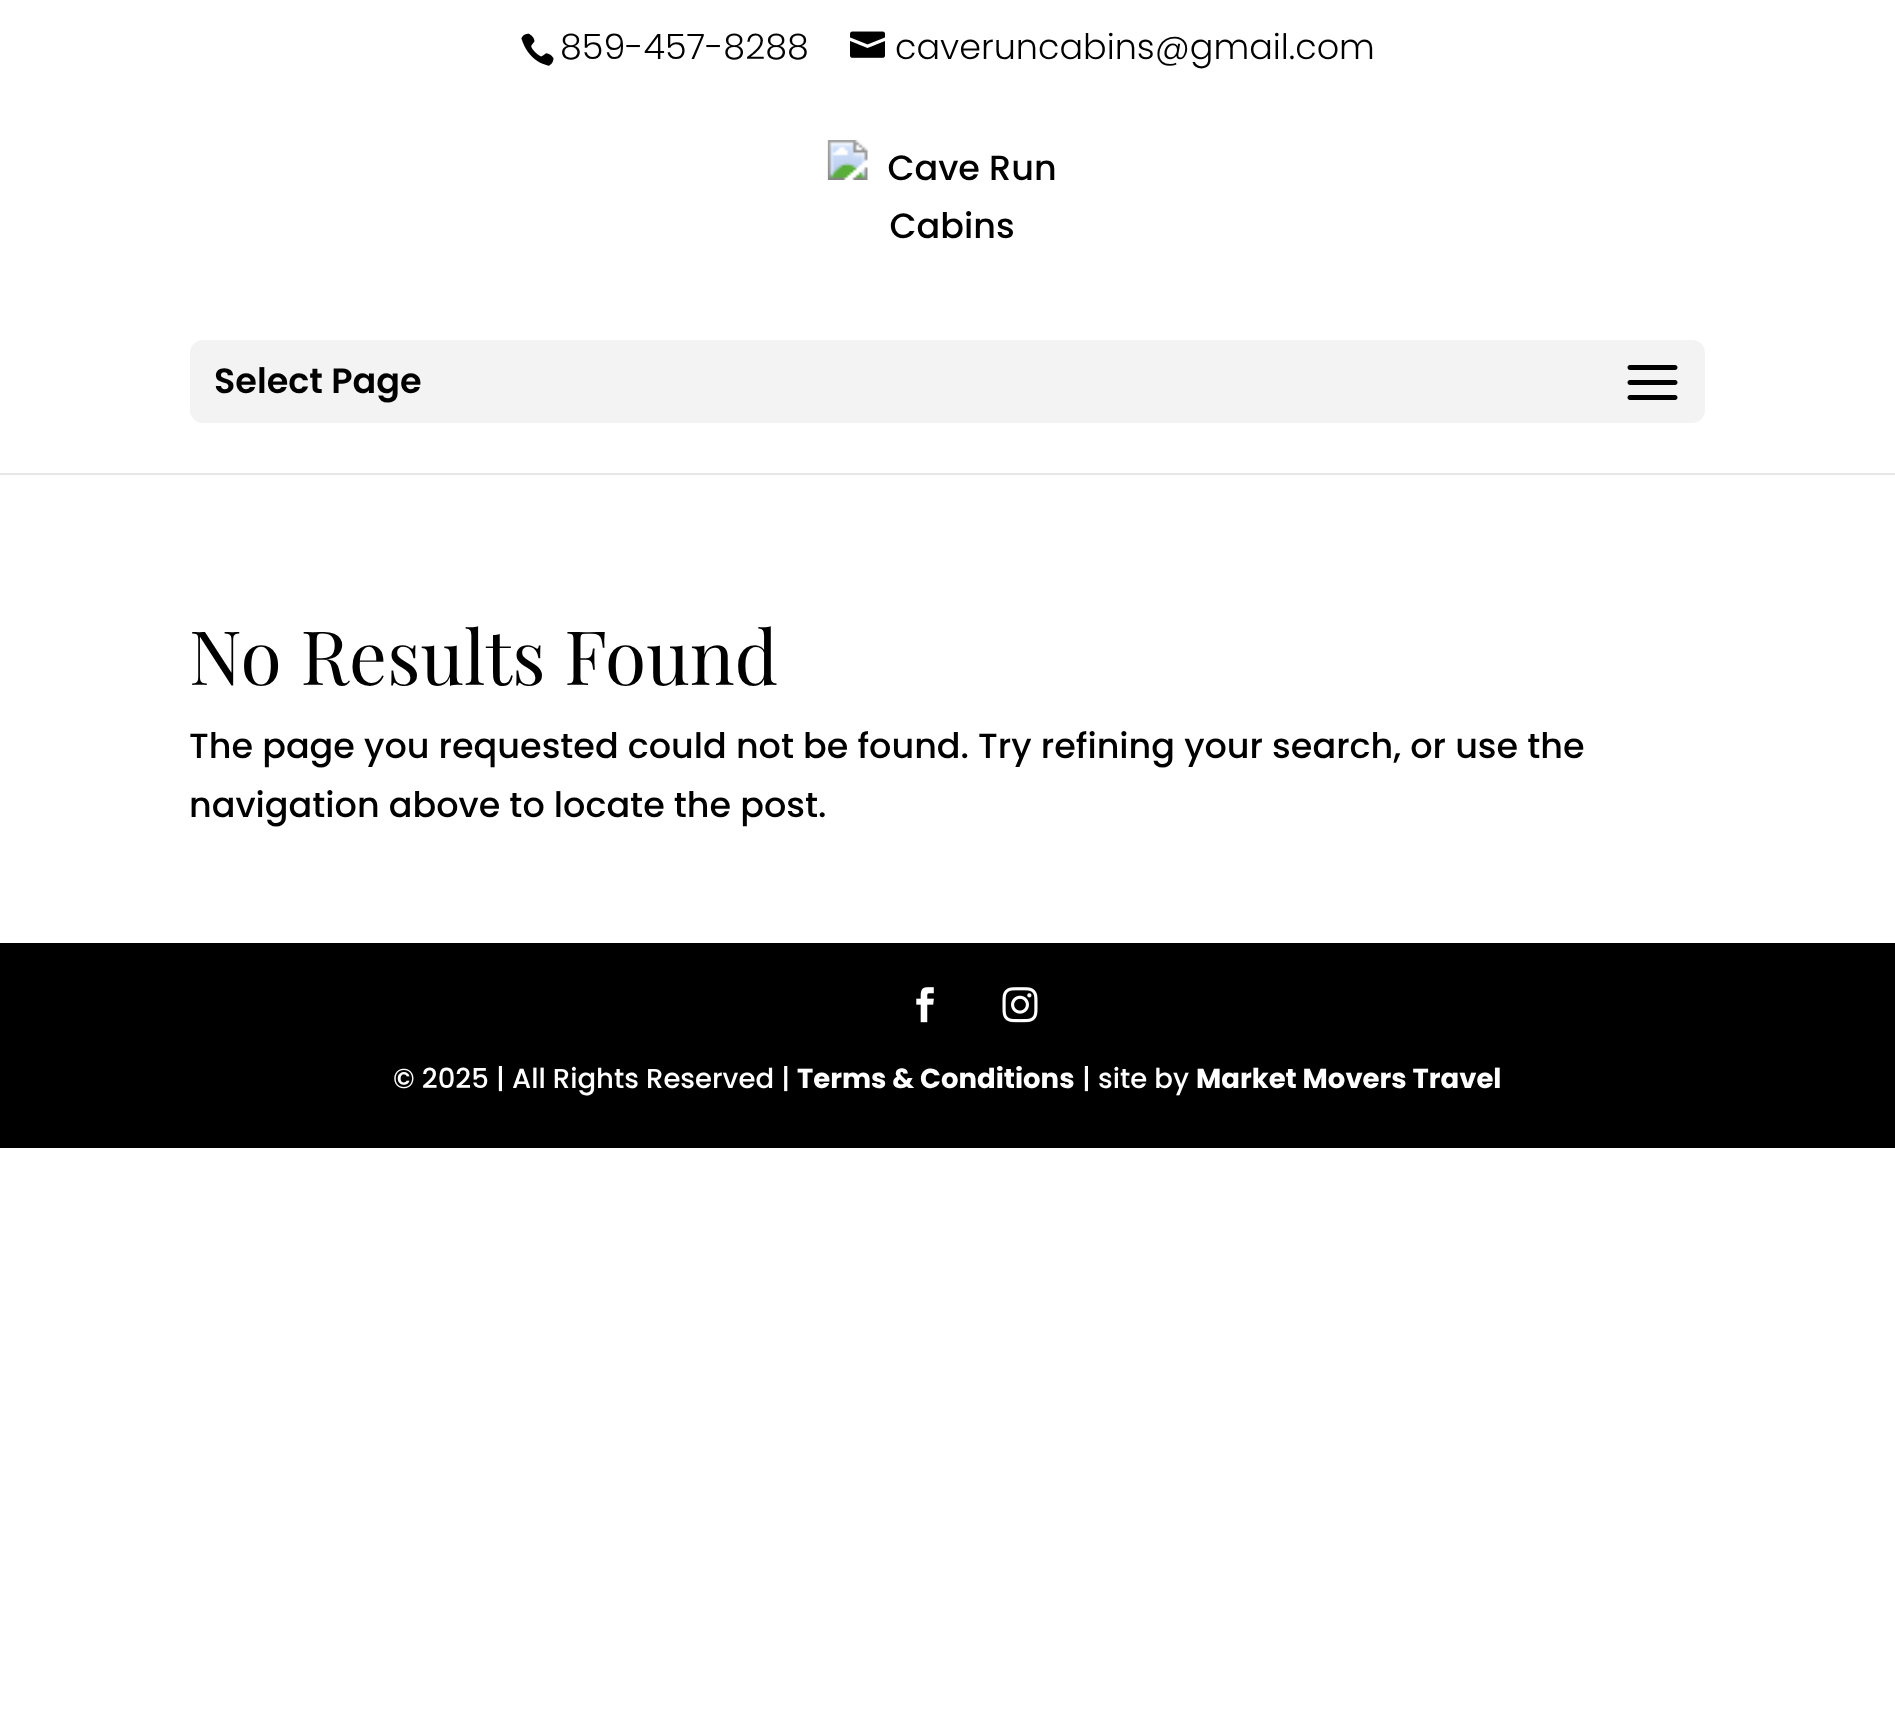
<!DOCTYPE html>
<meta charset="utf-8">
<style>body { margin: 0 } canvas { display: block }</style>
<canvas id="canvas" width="1895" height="1724"></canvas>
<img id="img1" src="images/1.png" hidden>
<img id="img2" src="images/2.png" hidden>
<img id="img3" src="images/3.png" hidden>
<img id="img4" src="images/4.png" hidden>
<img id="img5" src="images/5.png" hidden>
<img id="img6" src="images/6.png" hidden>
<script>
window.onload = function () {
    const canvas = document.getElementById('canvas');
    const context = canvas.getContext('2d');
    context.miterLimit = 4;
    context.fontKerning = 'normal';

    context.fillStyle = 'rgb(255, 255, 255)';
    context.fillRect(0, 0, 1895, 1724);
    context.drawImage(document.getElementById('img1'), 521, 33, 33, 33);
    context.drawImage(document.getElementById('img2'), 850, 31, 35, 27);
    context.fillStyle = 'rgb(230, 230, 230)';
    context.fillRect(0, 473, 1895, 2);
    context.drawImage(document.getElementById('img3'), 827, 140, 228, 99);
    context.fillStyle = 'rgb(243, 243, 243)';
    context.beginPath();
    context.roundRect(190, 340, 1515, 83, 13);
    context.fill();
    context.drawImage(document.getElementById('img4'), 1627, 365, 51, 35);
    context.fillStyle = 'rgb(0, 0, 0)';
    context.fillRect(0, 943, 1895, 205);
    context.drawImage(document.getElementById('img5'), 916, 987, 18, 36);
    context.drawImage(document.getElementById('img6'), 1002, 987, 36, 36);
    context.font = '300 35px Poppins';
    context.fillText('859-457-8288', 560, 59);
    context.fillText('caveruncabins@gmail.com', 895, 59);
    context.font = '600 35px Poppins';
    context.fillText('Select Page', 214, 393);
    context.font = '75px Playfair Display';
    context.fillText('No Results Found', 189, 685);
    context.font = '500 35px Poppins';
    context.fillText('The page you requested could not be found. Try refining your search, or use the', 189, 758);
    context.fillText('navigation above to locate the post.', 189, 817);
    context.font = '500 27.5px Poppins';
    context.fillStyle = 'rgb(255, 255, 255)';
    context.fillText('© 2025 | All Rights Reserved |', 393, 1088);
    context.font = 'bold 27.5px Poppins';
    context.fillText('Terms & Conditions', 797, 1088);
    context.font = '500 27.5px Poppins';
    context.fillText('| site by', 1082, 1088);
    context.font = 'bold 27.5px Poppins';
    context.fillText('Market Movers Travel', 1196, 1088);
};
</script>
